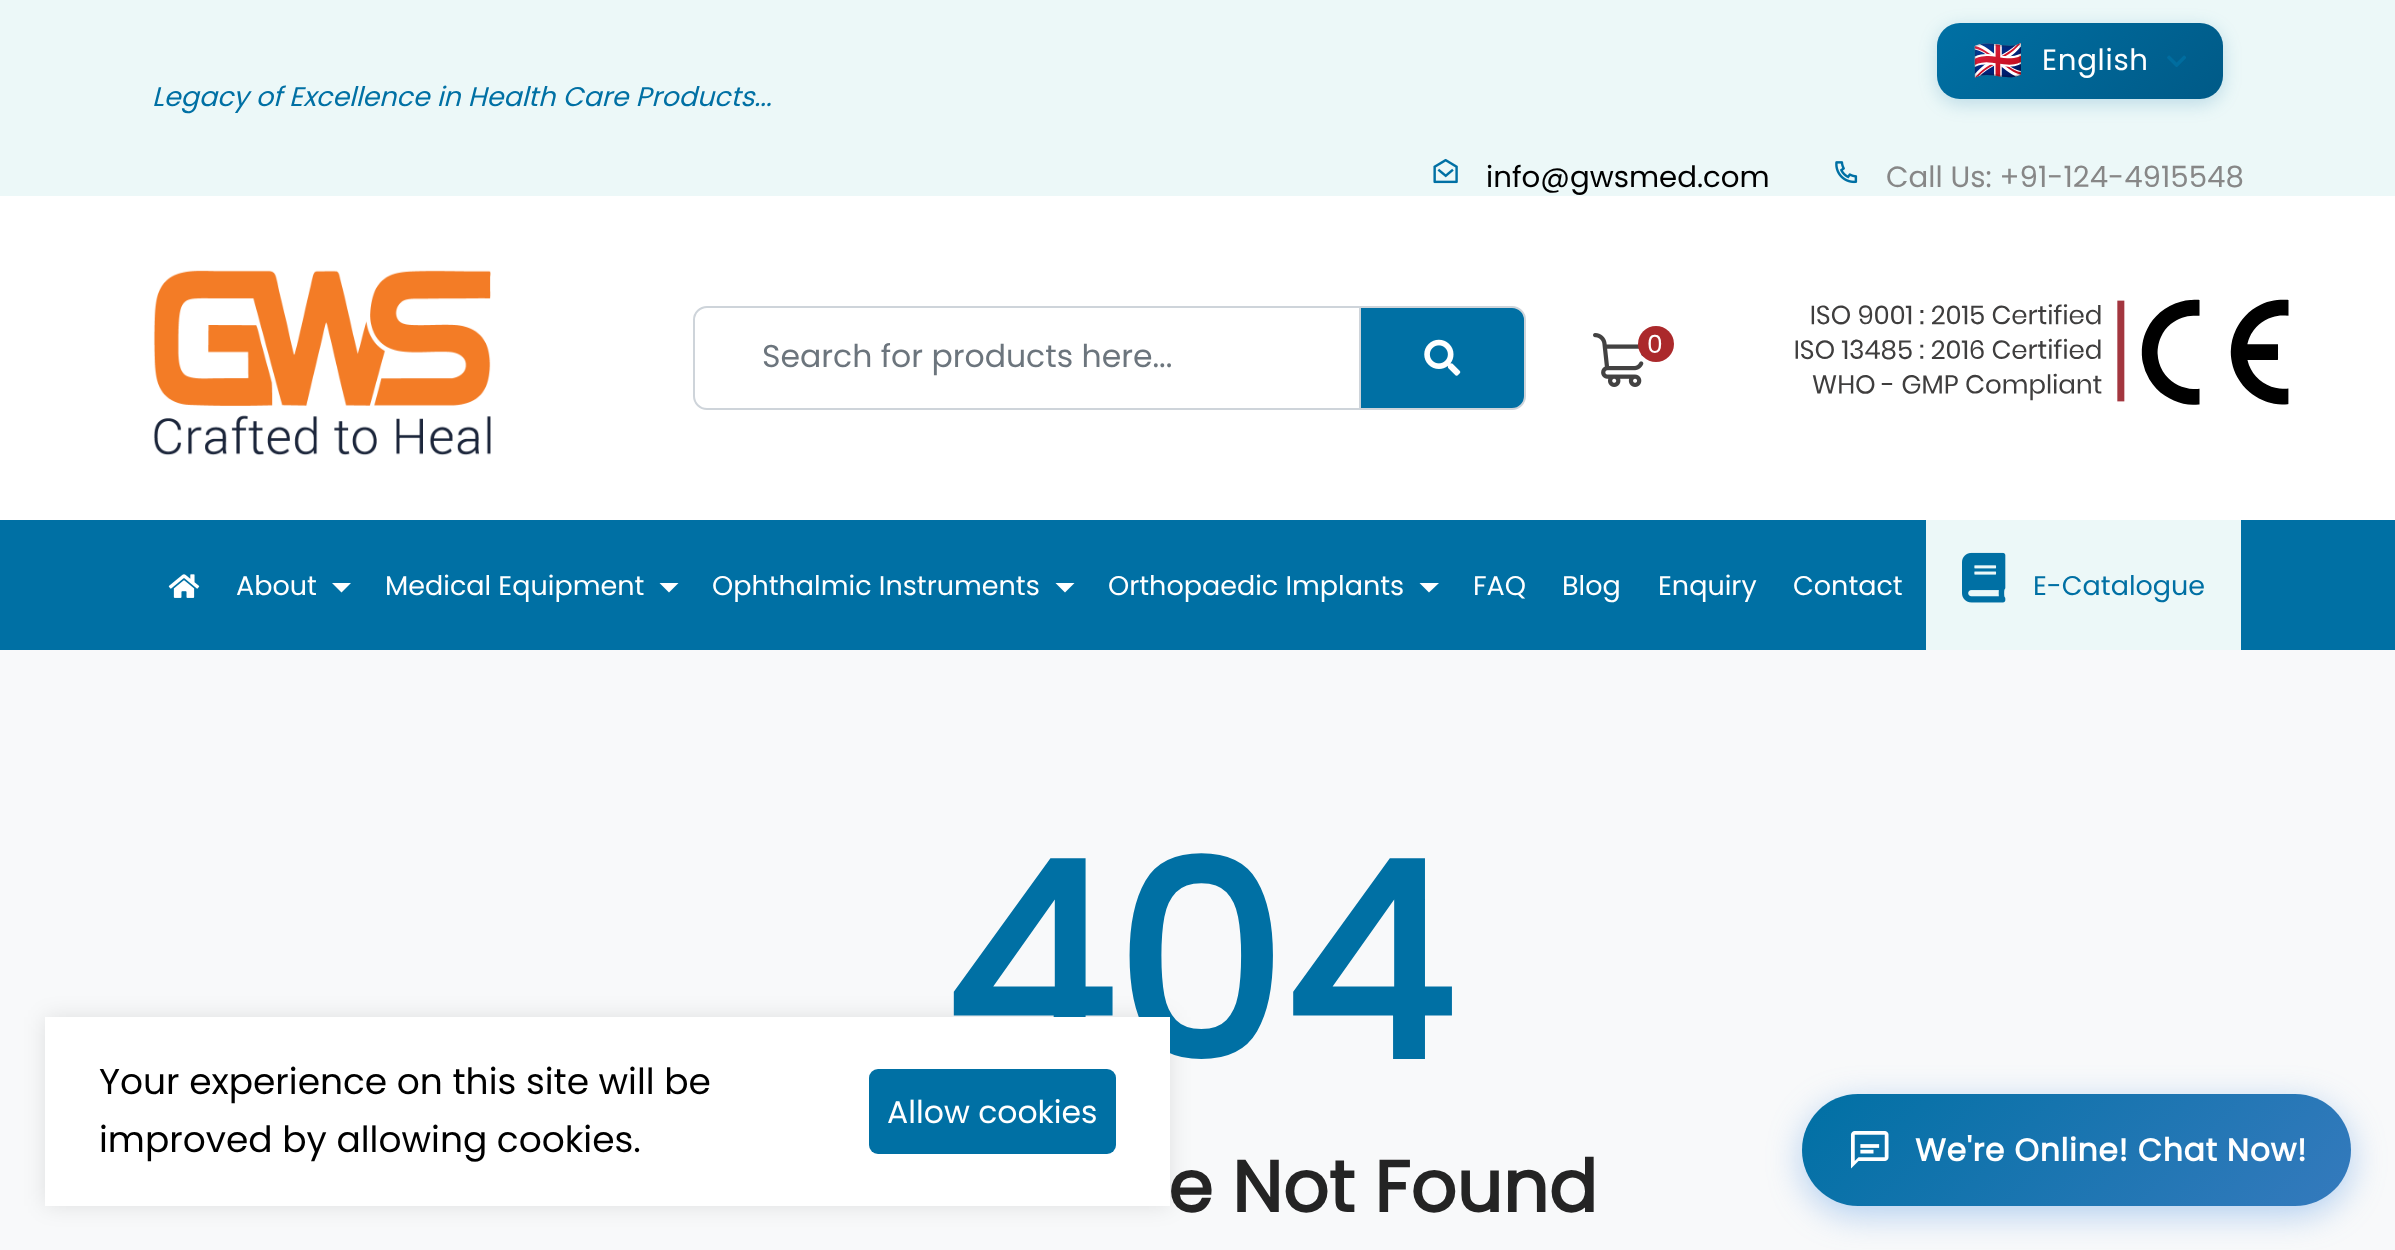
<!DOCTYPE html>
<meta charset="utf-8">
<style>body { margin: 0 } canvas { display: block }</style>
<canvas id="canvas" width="2395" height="1250"></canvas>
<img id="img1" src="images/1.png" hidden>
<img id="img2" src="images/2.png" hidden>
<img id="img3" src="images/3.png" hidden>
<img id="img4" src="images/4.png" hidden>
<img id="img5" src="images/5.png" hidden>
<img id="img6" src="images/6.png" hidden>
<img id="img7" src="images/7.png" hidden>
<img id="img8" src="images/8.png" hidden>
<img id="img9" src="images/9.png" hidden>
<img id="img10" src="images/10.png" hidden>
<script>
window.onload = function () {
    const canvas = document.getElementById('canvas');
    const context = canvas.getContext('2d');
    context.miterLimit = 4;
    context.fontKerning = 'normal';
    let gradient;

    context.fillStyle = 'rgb(255, 255, 255)';
    context.fillRect(0, 0, 2395, 1250);
    context.fillStyle = 'rgb(236, 248, 248)';
    context.fillRect(0, 0, 2395, 196);
    context.fillStyle = 'rgba(0, 112, 164, 0.2)';
    context.filter = 'blur(9px)';
    context.beginPath();
    context.roundRect(1937, 27, 286, 77, 23);
    context.fill();
    context.filter = 'none';
    gradient = context.createLinearGradient(1990, -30, 2171, 151);
    gradient.addColorStop(0, 'rgb(0, 112, 164)');
    gradient.addColorStop(1, 'rgb(0, 90, 135)');
    context.fillStyle = gradient;
    context.beginPath();
    context.roundRect(1937, 23, 286, 76, 23);
    context.fill();
    context.drawImage(document.getElementById('img1'), 2167, 55, 19, 12);
    context.drawImage(document.getElementById('img2'), 1433, 158, 25, 26);
    context.drawImage(document.getElementById('img3'), 1835, 161, 23, 23);
    context.drawImage(document.getElementById('img4'), 153, 270, 338, 186);
    context.beginPath();
    context.roundRect(694, 307, 666, 102, [13, 0, 0, 13]);
    context.strokeStyle = 'rgb(206, 212, 218)';
    context.lineWidth = 2;
    context.stroke();
    context.fillStyle = 'rgb(0, 112, 164)';
    context.beginPath();
    context.roundRect(1360, 307, 165, 102, [0, 13, 13, 0]);
    context.fill();
    context.stroke();
    context.drawImage(document.getElementById('img5'), 1424, 339, 37, 37);
    context.drawImage(document.getElementById('img6'), 1593, 333, 51, 54);
    context.fillStyle = 'rgb(171, 41, 43)';
    context.beginPath();
    context.arc(1656, 344, 18, 0, 2 * Math.PI);
    context.fill();
    context.drawImage(document.getElementById('img7'), 1795, 299, 494, 106);
    context.fillStyle = 'rgb(0, 112, 164)';
    context.fillRect(0, 520, 2395, 130);
    context.drawImage(document.getElementById('img8'), 168, 574, 32, 24);
    context.fillStyle = 'rgb(255, 255, 255)';
    context.beginPath();
    context.moveTo(351, 583);
    context.lineTo(341.5, 592.5);
    context.lineTo(332, 583);
    context.closePath();
    context.fill();
    context.beginPath();
    context.moveTo(678.5, 583);
    context.lineTo(669, 592.5);
    context.lineTo(659.5, 583);
    context.closePath();
    context.fill();
    context.beginPath();
    context.moveTo(1074.5, 583);
    context.lineTo(1065, 592.5);
    context.lineTo(1055.5, 583);
    context.closePath();
    context.fill();
    context.beginPath();
    context.moveTo(1439, 583);
    context.lineTo(1429, 592.5);
    context.lineTo(1419.5, 583);
    context.closePath();
    context.fill();
    context.fillStyle = 'rgb(236, 248, 248)';
    context.fillRect(1926, 520, 315, 130);
    context.drawImage(document.getElementById('img9'), 1962, 552, 44, 51);
    context.fillStyle = 'rgb(248, 249, 250)';
    context.fillRect(0, 650, 2395, 600);
    context.fillStyle = 'rgba(0, 0, 0, 0.1)';
    context.filter = 'blur(11px)';
    context.beginPath();
    context.rect(45, 1017, 1125, 189);
    context.fill();
    context.filter = 'none';
    context.fillStyle = 'rgba(74, 144, 226, 0.4)';
    context.filter = 'blur(17px)';
    context.beginPath();
    context.roundRect(1802, 1103, 549, 112, 56);
    context.fill();
    context.filter = 'none';
    gradient = context.createLinearGradient(1911, 984, 2242, 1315);
    gradient.addColorStop(0, 'rgb(0, 112, 164)');
    gradient.addColorStop(1, 'rgb(53, 122, 189)');
    context.fillStyle = gradient;
    context.beginPath();
    context.roundRect(1802, 1094, 549, 112, 56);
    context.fill();
    context.drawImage(document.getElementById('img10'), 1851, 1131, 38, 38);
    context.font = 'italic 27px Poppins';
    context.fillStyle = 'rgb(0, 112, 164)';
    context.fillText('Legacy of Excellence in Health Care Products...', 152, 106);
    context.font = '40px Noto Color Emoji';
    context.fillStyle = 'rgb(255, 255, 255)';
    context.fillText('🇬🇧', 1973, 74);
    context.letterSpacing = '0.7px';
    context.font = '29.25px Poppins';
    context.fillText('English', 2042, 70);
    context.letterSpacing = '0px';
    context.fillStyle = 'rgb(0, 0, 0)';
    context.fillText('info@gwsmed.com', 1486, 187);
    context.fillStyle = 'rgb(135, 135, 135)';
    context.fillText('Call Us: +91-124-4915548', 1886, 187);
    context.font = '31.5px Poppins';
    context.fillStyle = 'rgb(108, 117, 125)';
    context.fillText('Search for products here...', 762, 367);
    context.font = '25px Poppins';
    context.fillStyle = 'rgb(255, 255, 255)';
    context.fillText('0', 1647, 353);
    context.font = '27px Poppins';
    context.fillText('About', 236, 595);
    context.fillText('Medical Equipment', 385, 595);
    context.fillText('Ophthalmic Instruments', 712, 595);
    context.fillText('Orthopaedic Implants', 1108, 595);
    context.fillText('FAQ', 1473, 595);
    context.fillText('Blog', 1562, 595);
    context.fillText('Enquiry', 1658, 595);
    context.fillText('Contact', 1793, 595);
    context.fillStyle = 'rgb(0, 112, 164)';
    context.fillText('E-Catalogue', 2033, 595);
    context.font = 'bold 270px Poppins';
    context.fillText('404', 943, 1059);
    context.fillStyle = 'rgb(255, 255, 255)';
    context.fillRect(45, 1017, 1125, 189);
    context.fillStyle = 'rgb(0, 112, 164)';
    context.beginPath();
    context.roundRect(869, 1069, 247, 85, 9);
    context.fill();
    context.font = '31.5px Poppins';
    context.fillStyle = 'rgb(255, 255, 255)';
    context.fillText('Allow cookies', 887, 1123);
    context.font = '36px Poppins';
    context.fillStyle = 'rgb(0, 0, 0)';
    context.fillText('improved by allowing cookies.', 99, 1152);
    context.fillText('Your experience on this site will be', 99, 1094);
    context.font = 'bold 72px Poppins';
    context.fillStyle = 'rgb(36, 36, 36)';
    context.fillText('e Not Found', 1168, 1212);
    context.letterSpacing = '0.7px';
    context.font = 'bold 31.5px Poppins';
    context.fillStyle = 'rgb(255, 255, 255)';
    context.fillText('We\'re Online! Chat Now!', 1915, 1161);
};
</script>
